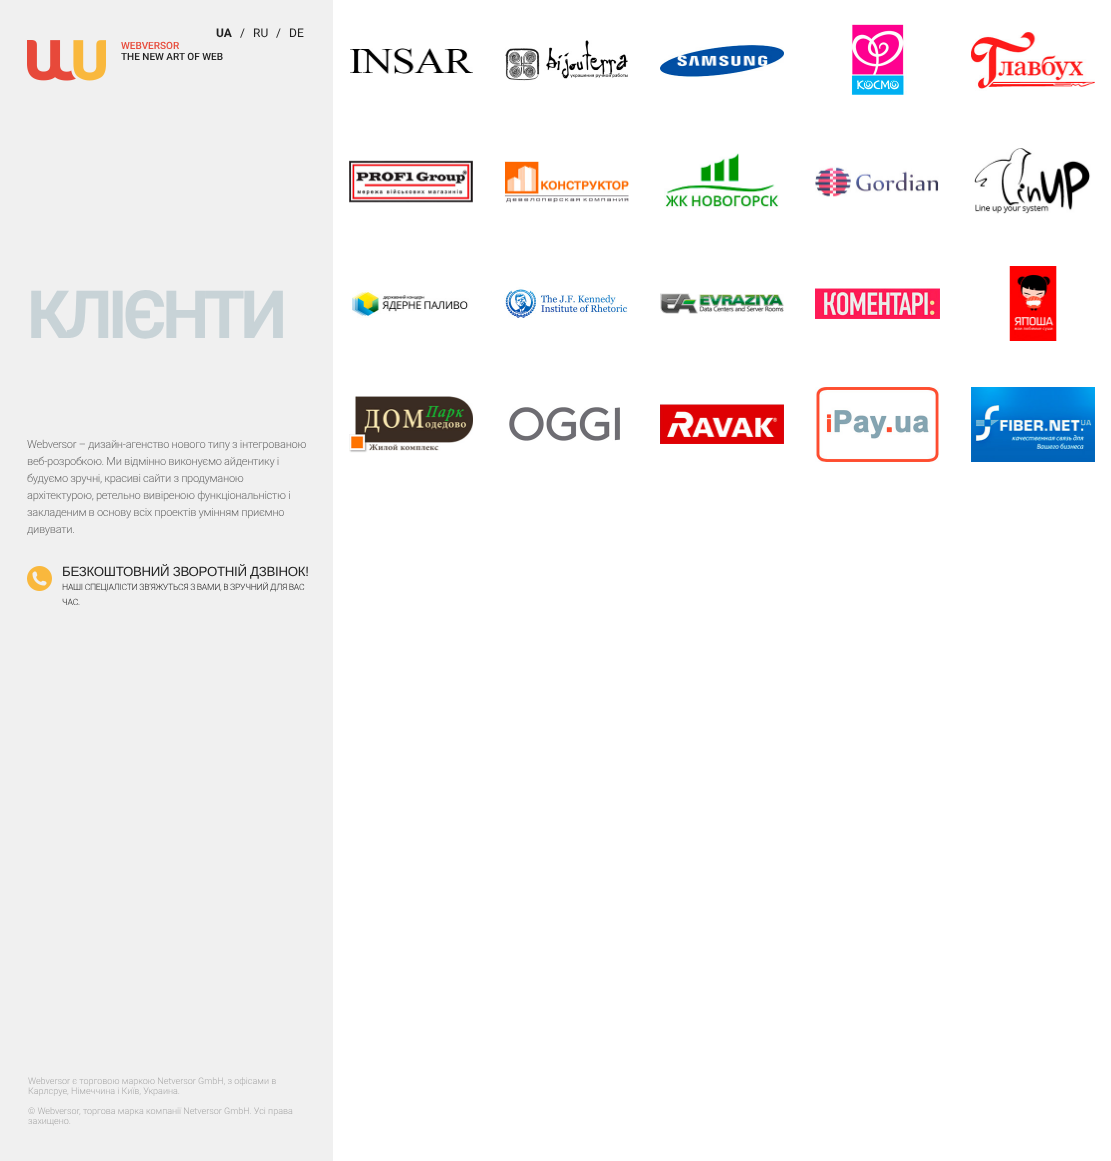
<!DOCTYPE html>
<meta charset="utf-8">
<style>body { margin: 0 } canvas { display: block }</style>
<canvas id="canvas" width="1111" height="1161"></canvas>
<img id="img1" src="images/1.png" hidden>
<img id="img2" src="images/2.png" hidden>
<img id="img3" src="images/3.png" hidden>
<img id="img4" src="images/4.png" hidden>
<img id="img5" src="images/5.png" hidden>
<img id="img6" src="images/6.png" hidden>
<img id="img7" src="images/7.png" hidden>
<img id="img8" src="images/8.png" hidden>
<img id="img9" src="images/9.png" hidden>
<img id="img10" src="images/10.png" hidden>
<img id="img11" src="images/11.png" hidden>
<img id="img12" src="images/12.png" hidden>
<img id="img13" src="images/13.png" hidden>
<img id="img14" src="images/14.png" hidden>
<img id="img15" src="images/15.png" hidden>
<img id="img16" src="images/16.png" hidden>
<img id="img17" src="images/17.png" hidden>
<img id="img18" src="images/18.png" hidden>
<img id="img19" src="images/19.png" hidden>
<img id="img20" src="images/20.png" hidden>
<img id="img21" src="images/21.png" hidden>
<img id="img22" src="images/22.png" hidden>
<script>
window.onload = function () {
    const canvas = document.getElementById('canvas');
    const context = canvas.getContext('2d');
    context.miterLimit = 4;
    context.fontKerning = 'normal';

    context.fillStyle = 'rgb(255, 255, 255)';
    context.fillRect(0, 0, 1111, 1161);
    context.fillStyle = 'rgb(240, 240, 240)';
    context.fillRect(0, 0, 333, 1161);
    context.drawImage(document.getElementById('img1'), 27, 40, 79, 41);
    context.drawImage(document.getElementById('img2'), 27, 566, 25, 25);
    context.drawImage(document.getElementById('img3'), 350, 48, 123, 26);
    context.drawImage(document.getElementById('img4'), 505, 40, 123, 41);
    context.drawImage(document.getElementById('img5'), 660, 44, 124, 34);
    context.drawImage(document.getElementById('img6'), 851, 24, 56, 71);
    context.drawImage(document.getElementById('img7'), 971, 31, 124, 60);
    context.drawImage(document.getElementById('img8'), 349, 160, 124, 43);
    context.drawImage(document.getElementById('img9'), 504, 161, 125, 42);
    context.drawImage(document.getElementById('img10'), 664, 153, 115, 55);
    context.drawImage(document.getElementById('img11'), 815, 166, 124, 31);
    context.drawImage(document.getElementById('img12'), 974, 148, 117, 66);
    context.drawImage(document.getElementById('img13'), 352, 290, 117, 28);
    context.drawImage(document.getElementById('img14'), 504, 287, 124, 31);
    context.drawImage(document.getElementById('img15'), 660, 293, 124, 21);
    context.drawImage(document.getElementById('img16'), 815, 288, 125, 31);
    context.drawImage(document.getElementById('img17'), 1009, 266, 48, 75);
    context.drawImage(document.getElementById('img18'), 349, 396, 124, 57);
    context.drawImage(document.getElementById('img19'), 509, 407, 111, 34);
    context.drawImage(document.getElementById('img20'), 660, 403, 124, 41);
    context.drawImage(document.getElementById('img21'), 815, 387, 124, 75);
    context.drawImage(document.getElementById('img22'), 971, 387, 124, 75);
    context.font = 'bold 12px Roboto';
    context.fillStyle = 'rgb(34, 34, 34)';
    context.fillText('UA', 216, 37);
    context.font = '12px Roboto';
    context.fillText('/', 240, 37);
    context.fillText('RU', 253, 37);
    context.fillText('/', 276, 37);
    context.fillText('DE', 289, 37);
    context.font = '500 10px Roboto';
    context.fillStyle = 'rgb(231, 76, 60)';
    context.fillText('WEBVERSOR', 121, 49);
    context.fillStyle = 'rgb(34, 34, 34)';
    context.fillText('THE NEW ART OF WEB', 121, 60);
    context.letterSpacing = '-4.5px';
    context.font = 'bold 66.5px Roboto';
    context.fillStyle = 'rgb(200, 211, 215)';
    context.fillText('КЛІЄНТИ', 27, 338);
    context.letterSpacing = '-0.3px';
    context.font = '300 11.1px Roboto';
    context.fillStyle = 'rgb(107, 107, 107)';
    context.fillText('Webversor – дизайн-агенство нового типу з інтегрованою', 27, 448);
    context.fillText('веб-розробкою. Ми відмінно виконуємо айдентику і', 27, 465);
    context.fillText('будуємо зручні, красиві сайти з продуманою', 27, 482);
    context.fillText('архітектурою, ретельно вивіреною функціональністю і', 27, 499);
    context.fillText('закладеним в основу всіх проектів умінням приємно', 27, 516);
    context.fillText('дивувати.', 27, 533);
    context.font = '13.3px Liberation Sans';
    context.fillStyle = 'rgb(34, 34, 34)';
    context.fillText('БЕЗКОШТОВНИЙ ЗВОРОТНІЙ ДЗВІНОК!', 62, 576);
    context.font = '300 8.7px Roboto';
    context.fillText('НАШІ СПЕЦІАЛІСТИ ЗВ’ЯЖУТЬСЯ З ВАМИ, В ЗРУЧНИЙ ДЛЯ ВАС', 62, 590);
    context.fillText('ЧАС.', 62, 605);
    context.letterSpacing = '0px';
    context.font = '300 9px Roboto';
    context.fillStyle = 'rgb(170, 170, 170)';
    context.fillText('Webversor є торговою маркою Netversor GmbH, з офісами в', 28, 1084);
    context.fillText('Карлсруе, Німеччина і Київ, Украина.', 28, 1094);
    context.fillText('© Webversor, торгова марка компанії Netversor GmbH. Усі права', 28, 1114);
    context.fillText('захищено.', 28, 1124);
};
</script>
